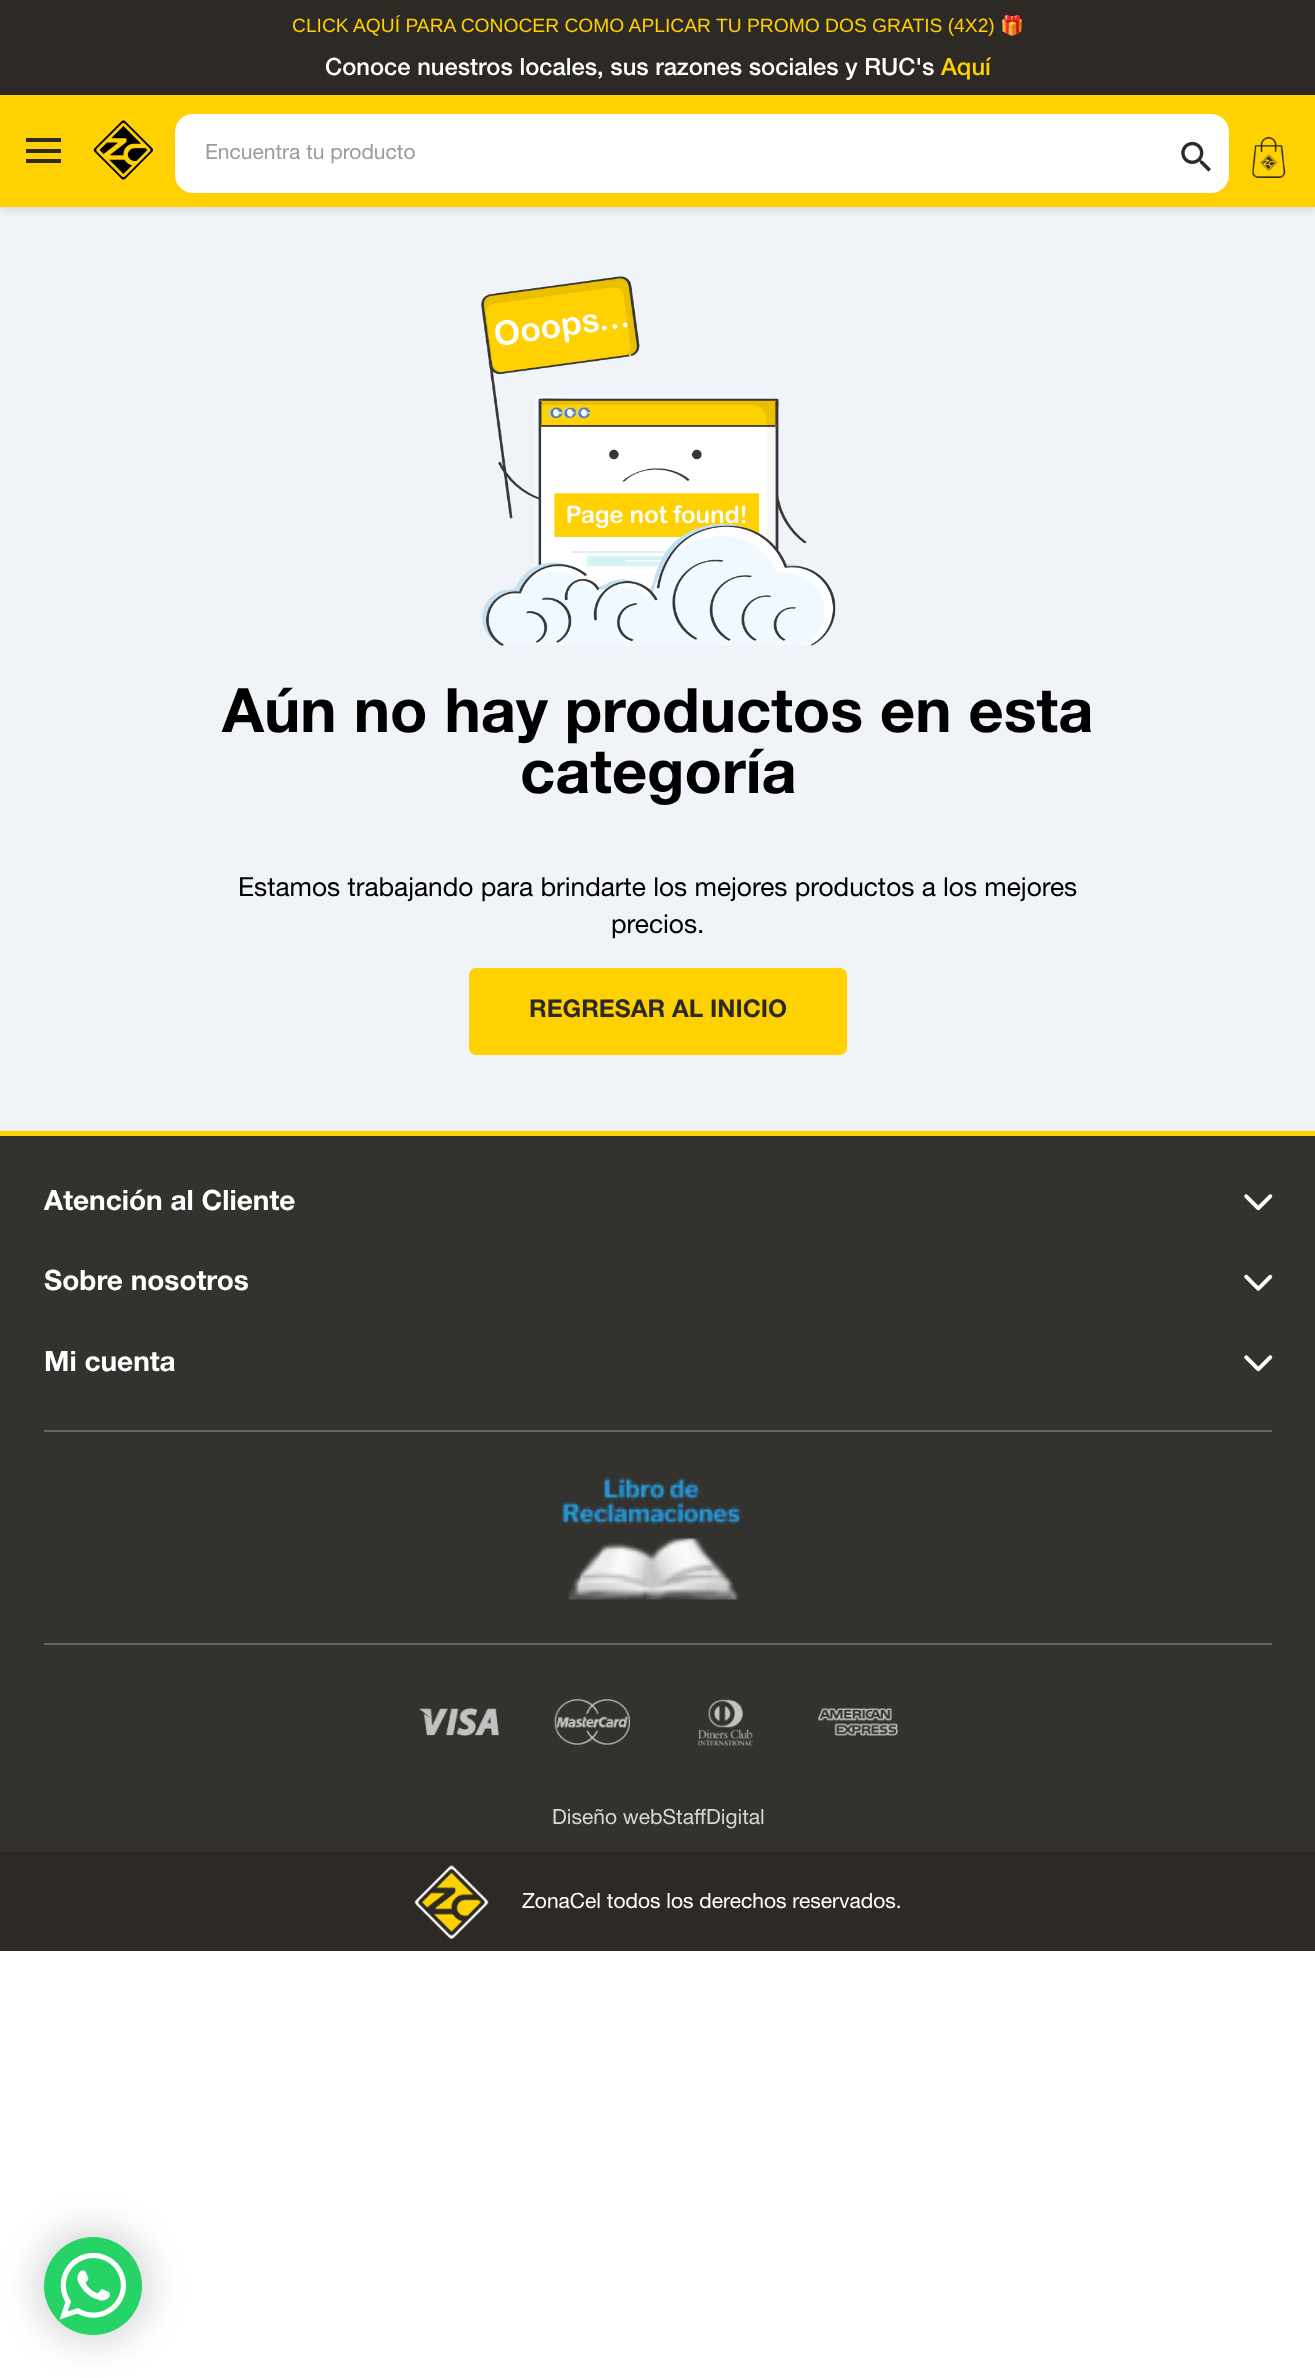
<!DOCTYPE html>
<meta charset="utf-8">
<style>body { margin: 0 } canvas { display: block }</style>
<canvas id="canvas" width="1315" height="2378"></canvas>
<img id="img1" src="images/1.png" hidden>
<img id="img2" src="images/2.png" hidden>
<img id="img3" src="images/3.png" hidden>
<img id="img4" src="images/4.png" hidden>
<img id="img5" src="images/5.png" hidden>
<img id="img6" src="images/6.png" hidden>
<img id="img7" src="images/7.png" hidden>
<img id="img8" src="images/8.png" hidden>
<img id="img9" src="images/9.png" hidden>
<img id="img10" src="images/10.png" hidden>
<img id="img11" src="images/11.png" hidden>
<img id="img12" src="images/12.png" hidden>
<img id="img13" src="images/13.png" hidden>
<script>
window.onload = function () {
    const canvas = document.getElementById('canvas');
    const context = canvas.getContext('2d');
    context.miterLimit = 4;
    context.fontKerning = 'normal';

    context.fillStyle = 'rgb(255, 255, 255)';
    context.fillRect(0, 0, 1315, 2378);
    context.fillStyle = 'rgb(240, 243, 248)';
    context.fillRect(0, 207, 1315, 924);
    context.fillStyle = 'rgba(0, 0, 0, 0.1)';
    context.filter = 'blur(4.5px)';
    context.beginPath();
    context.rect(0, 4, 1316, 206);
    context.fill();
    context.filter = 'none';
    context.fillStyle = 'rgb(45, 42, 38)';
    context.fillRect(0, 0, 1315, 95);
    context.fillStyle = 'rgb(255, 209, 0)';
    context.fillRect(0, 95, 1315, 112);
    context.fillStyle = 'rgb(45, 42, 38)';
    context.fillRect(26, 138, 35, 4);
    context.fillRect(26, 149, 35, 4);
    context.fillRect(26, 159, 35, 4);
    context.drawImage(document.getElementById('img1'), 93, 120, 60, 60);
    context.fillStyle = 'rgb(255, 255, 255)';
    context.beginPath();
    context.roundRect(175, 114, 1054, 79, 18);
    context.fill();
    context.drawImage(document.getElementById('img2'), 1181, 141, 30, 31);
    context.drawImage(document.getElementById('img3'), 1252, 136, 34, 42);
    context.drawImage(document.getElementById('img4'), 481, 276, 355, 370);
    context.fillStyle = 'rgb(255, 209, 0)';
    context.beginPath();
    context.roundRect(469, 968, 378, 87, 7);
    context.fill();
    context.fillStyle = 'rgb(52, 50, 47)';
    context.fillRect(0, 1136, 1315, 716);
    context.fillStyle = 'rgb(255, 209, 0)';
    context.fillRect(0, 1131, 1315, 5);
    context.drawImage(document.getElementById('img5'), 1244, 1194, 29, 17);
    context.drawImage(document.getElementById('img6'), 1244, 1274, 29, 17);
    context.drawImage(document.getElementById('img5'), 1244, 1355, 29, 17);
    context.fillStyle = 'rgb(101, 101, 101)';
    context.fillRect(44, 1430, 1228, 2);
    context.fillRect(44, 1643, 1228, 2);
    context.drawImage(document.getElementById('img7'), 562, 1477, 180, 123);
    context.drawImage(document.getElementById('img8'), 419, 1708, 80, 28);
    context.drawImage(document.getElementById('img9'), 554, 1699, 76, 46);
    context.drawImage(document.getElementById('img10'), 698, 1699, 56, 47);
    context.drawImage(document.getElementById('img11'), 818, 1708, 80, 28);
    context.fillStyle = 'rgb(45, 42, 38)';
    context.fillRect(0, 1852, 1315, 99);
    context.drawImage(document.getElementById('img12'), 414, 1865, 75, 74);
    context.fillStyle = 'rgba(59, 59, 59, 0.2)';
    context.filter = 'blur(17.5px)';
    context.beginPath();
    context.roundRect(35, 2228, 116, 115, 57.5);
    context.fill();
    context.filter = 'none';
    context.fillStyle = 'rgb(37, 211, 102)';
    context.beginPath();
    context.arc(93, 2286, 49, 0, 2 * Math.PI);
    context.fill();
    context.drawImage(document.getElementById('img13'), 59, 2252, 67, 68);
    context.font = '19.25px Liberation Sans';
    context.fillStyle = 'rgb(255, 209, 0)';
    context.fillText('CLICK AQUÍ PARA CONOCER COMO APLICAR TU PROMO DOS GRATIS (4X2)', 292, 32);
    context.font = '19.25px Noto Color Emoji';
    context.fillText('🎁', 1000, 32);
    context.font = '500 23.8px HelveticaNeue';
    context.fillStyle = 'rgb(255, 255, 255)';
    context.fillText('Conoce nuestros locales, sus razones sociales y RUC\'s', 325, 75);
    context.fillStyle = 'rgb(255, 209, 0)';
    context.fillText('Aquí', 941, 75);
    context.font = '21px Helvetica Neue';
    context.fillStyle = 'rgb(155, 155, 155)';
    context.fillText('Encuentra tu producto', 205, 159);
    context.font = 'bold 61.25px Helvetica Neue';
    context.fillStyle = 'rgb(0, 0, 0)';
    context.fillText('Aún no hay productos en esta', 222, 732);
    context.fillText('categoría', 520, 793);
    context.font = '26.25px Helvetica Neue';
    context.fillText('Estamos trabajando para brindarte los mejores productos a los mejores', 238, 896);
    context.fillText('precios.', 611, 933);
    context.font = 'bold 24.5px Helvetica Neue';
    context.fillStyle = 'rgb(45, 42, 38)';
    context.fillText('REGRESAR AL INICIO', 529, 1017);
    context.font = 'bold 28px Helvetica Neue';
    context.fillStyle = 'rgb(255, 255, 255)';
    context.fillText('Atención al Cliente', 44, 1210);
    context.fillText('Sobre nosotros', 44, 1290);
    context.fillText('Mi cuenta', 44, 1371);
    context.font = '21px Helvetica Neue';
    context.fillStyle = 'rgb(214, 214, 213)';
    context.fillText('Diseño webStaffDigital', 552, 1824);
    context.fillStyle = 'rgb(255, 255, 255)';
    context.fillText('ZonaCel todos los derechos reservados.', 522, 1908);
};
</script>
